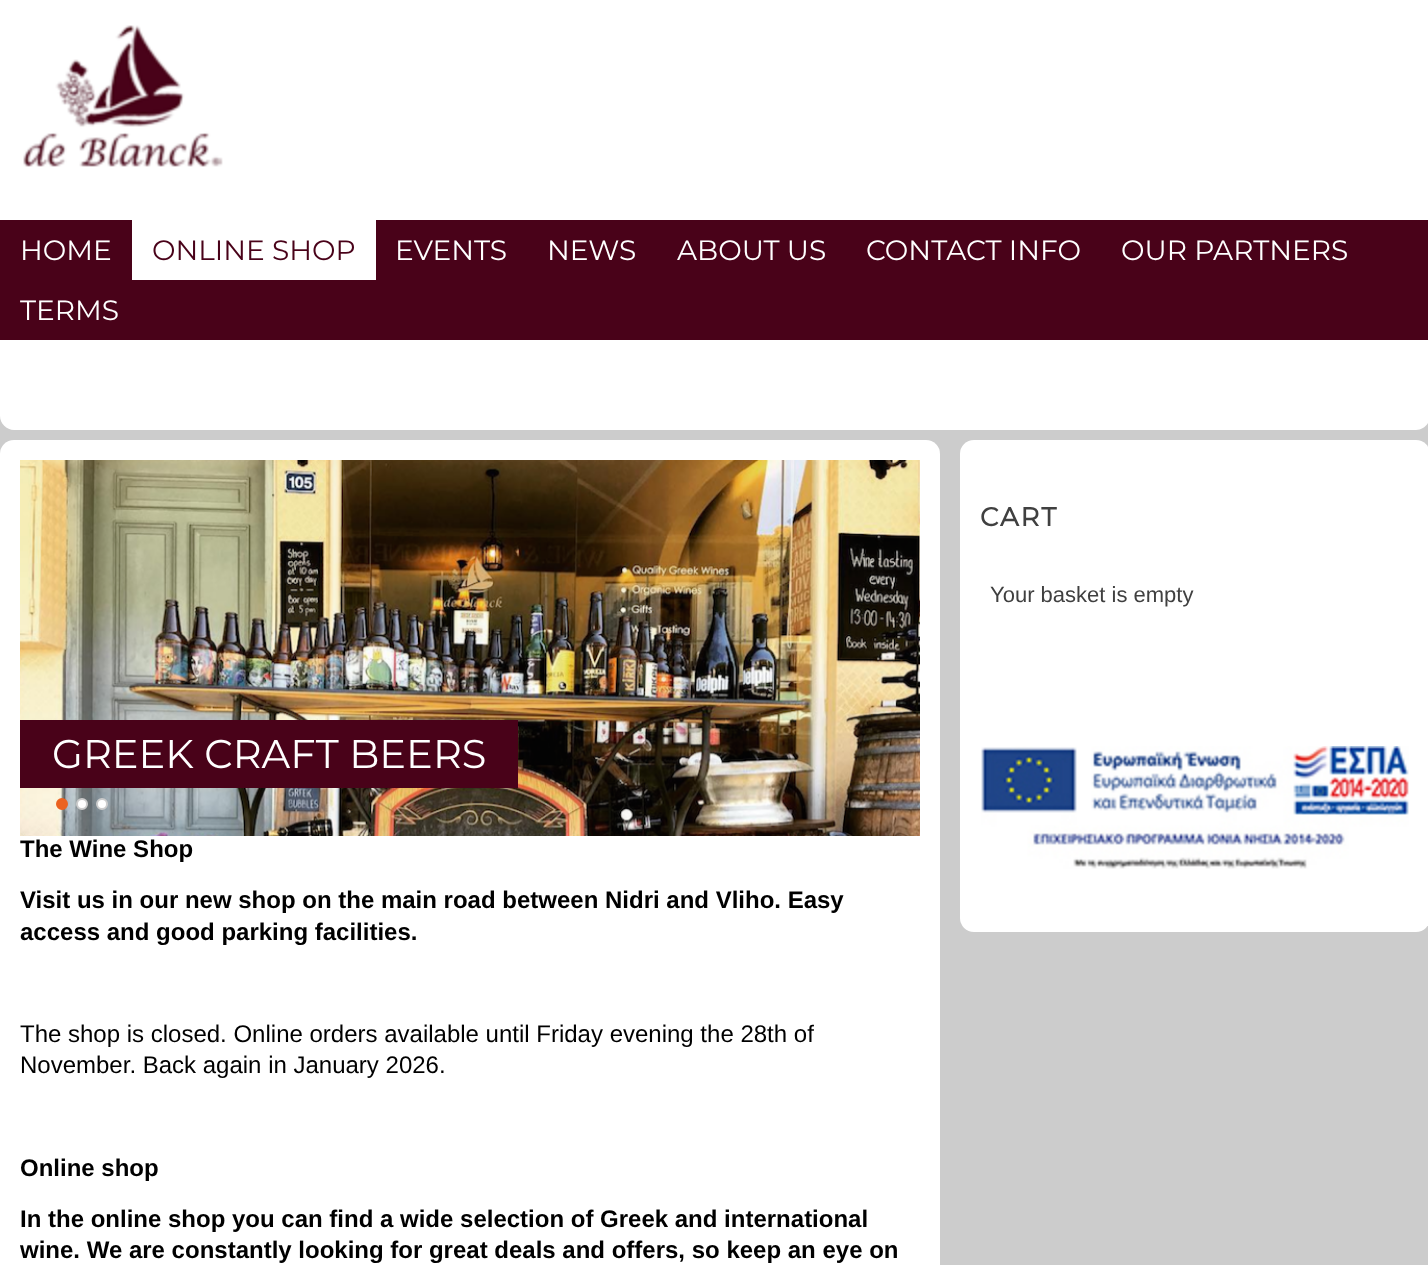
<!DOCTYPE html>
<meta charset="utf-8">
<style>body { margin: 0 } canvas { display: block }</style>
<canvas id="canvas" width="1428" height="1265"></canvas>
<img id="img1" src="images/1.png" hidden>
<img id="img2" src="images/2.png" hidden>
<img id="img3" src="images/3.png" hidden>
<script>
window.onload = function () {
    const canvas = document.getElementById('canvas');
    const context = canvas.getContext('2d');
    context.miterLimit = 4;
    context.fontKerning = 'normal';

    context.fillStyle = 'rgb(204, 204, 204)';
    context.fillRect(0, 0, 1428, 1265);
    context.fillStyle = 'rgb(255, 255, 255)';
    context.beginPath();
    context.moveTo(0, 0);
    context.lineTo(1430, 0);
    context.lineTo(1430, 416);
    context.bezierCurveTo(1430, 423.5, 1423.5, 430, 1416, 430);
    context.lineTo(14, 430);
    context.bezierCurveTo(6.5, 430, 0, 423.5, 0, 416);
    context.closePath();
    context.fill();
    context.drawImage(document.getElementById('img1'), 23, 25, 200, 142);
    context.fillStyle = 'rgb(73, 2, 25)';
    context.fillRect(0, 220, 1428, 120);
    context.fillStyle = 'rgb(255, 255, 255)';
    context.fillRect(132, 220, 244, 60);
    context.beginPath();
    context.roundRect(960, 440, 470, 492, 14);
    context.fill();
    context.drawImage(document.getElementById('img2'), 981, 746, 428, 123);
    context.beginPath();
    context.roundRect(0, 440, 940, 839, 14);
    context.fill();
    context.drawImage(document.getElementById('img3'), 20, 460, 900, 376);
    context.fillStyle = 'rgb(73, 2, 25)';
    context.fillRect(20, 720, 498, 68);
    context.fillStyle = 'rgb(235, 98, 33)';
    context.beginPath();
    context.arc(62, 804, 5, 0, 2 * Math.PI);
    context.fill();
    context.strokeStyle = 'rgb(235, 98, 33)';
    context.lineWidth = 2;
    context.stroke();
    context.fillStyle = 'rgb(255, 255, 255)';
    context.beginPath();
    context.arc(82, 804, 5, 0, 2 * Math.PI);
    context.fill();
    context.strokeStyle = 'rgb(204, 204, 204)';
    context.stroke();
    context.beginPath();
    context.arc(102, 804, 5, 0, 2 * Math.PI);
    context.fill();
    context.stroke();
    context.font = '100 28px Montserrat';
    context.fillText('HOME', 20, 260);
    context.fillStyle = 'rgb(73, 2, 25)';
    context.fillText('ONLINE SHOP', 152, 260);
    context.fillStyle = 'rgb(255, 255, 255)';
    context.fillText('EVENTS', 395, 260);
    context.fillText('NEWS', 547, 260);
    context.fillText('ABOUT US', 677, 260);
    context.fillText('CONTACT INFO', 866, 260);
    context.fillText('OUR PARTNERS', 1121, 260);
    context.fillText('TERMS', 20, 320);
    context.letterSpacing = '2px';
    context.font = 'bold 26px Montserrat';
    context.fillStyle = 'rgb(64, 64, 64)';
    context.fillText('CART', 980, 526);
    context.letterSpacing = '0px';
    context.font = '22px Liberation Sans';
    context.fillText('Your basket is empty', 990, 602);
    context.font = '100 40px Montserrat';
    context.fillStyle = 'rgb(255, 255, 255)';
    context.fillText('GREEK CRAFT BEERS', 52, 768);
    context.font = 'bold 24px Liberation Sans';
    context.fillStyle = 'rgb(0, 0, 0)';
    context.fillText('The Wine Shop', 20, 857);
    context.fillText('Visit us in our new shop on the main road between Nidri and Vliho. Easy', 20, 908);
    context.fillText('access and good parking facilities.', 20, 940);
    context.font = '24px Liberation Sans';
    context.fillText('The shop is closed. Online orders available until Friday evening the 28th of', 20, 1042);
    context.fillText('November. Back again in January 2026.', 20, 1073);
    context.font = 'bold 24px Liberation Sans';
    context.fillText('Online shop', 20, 1176);
    context.fillText('In the online shop you can find a wide selection of Greek and international', 20, 1227);
    context.fillText('wine. We are constantly looking for great deals and offers, so keep an eye on', 20, 1258);
};
</script>
